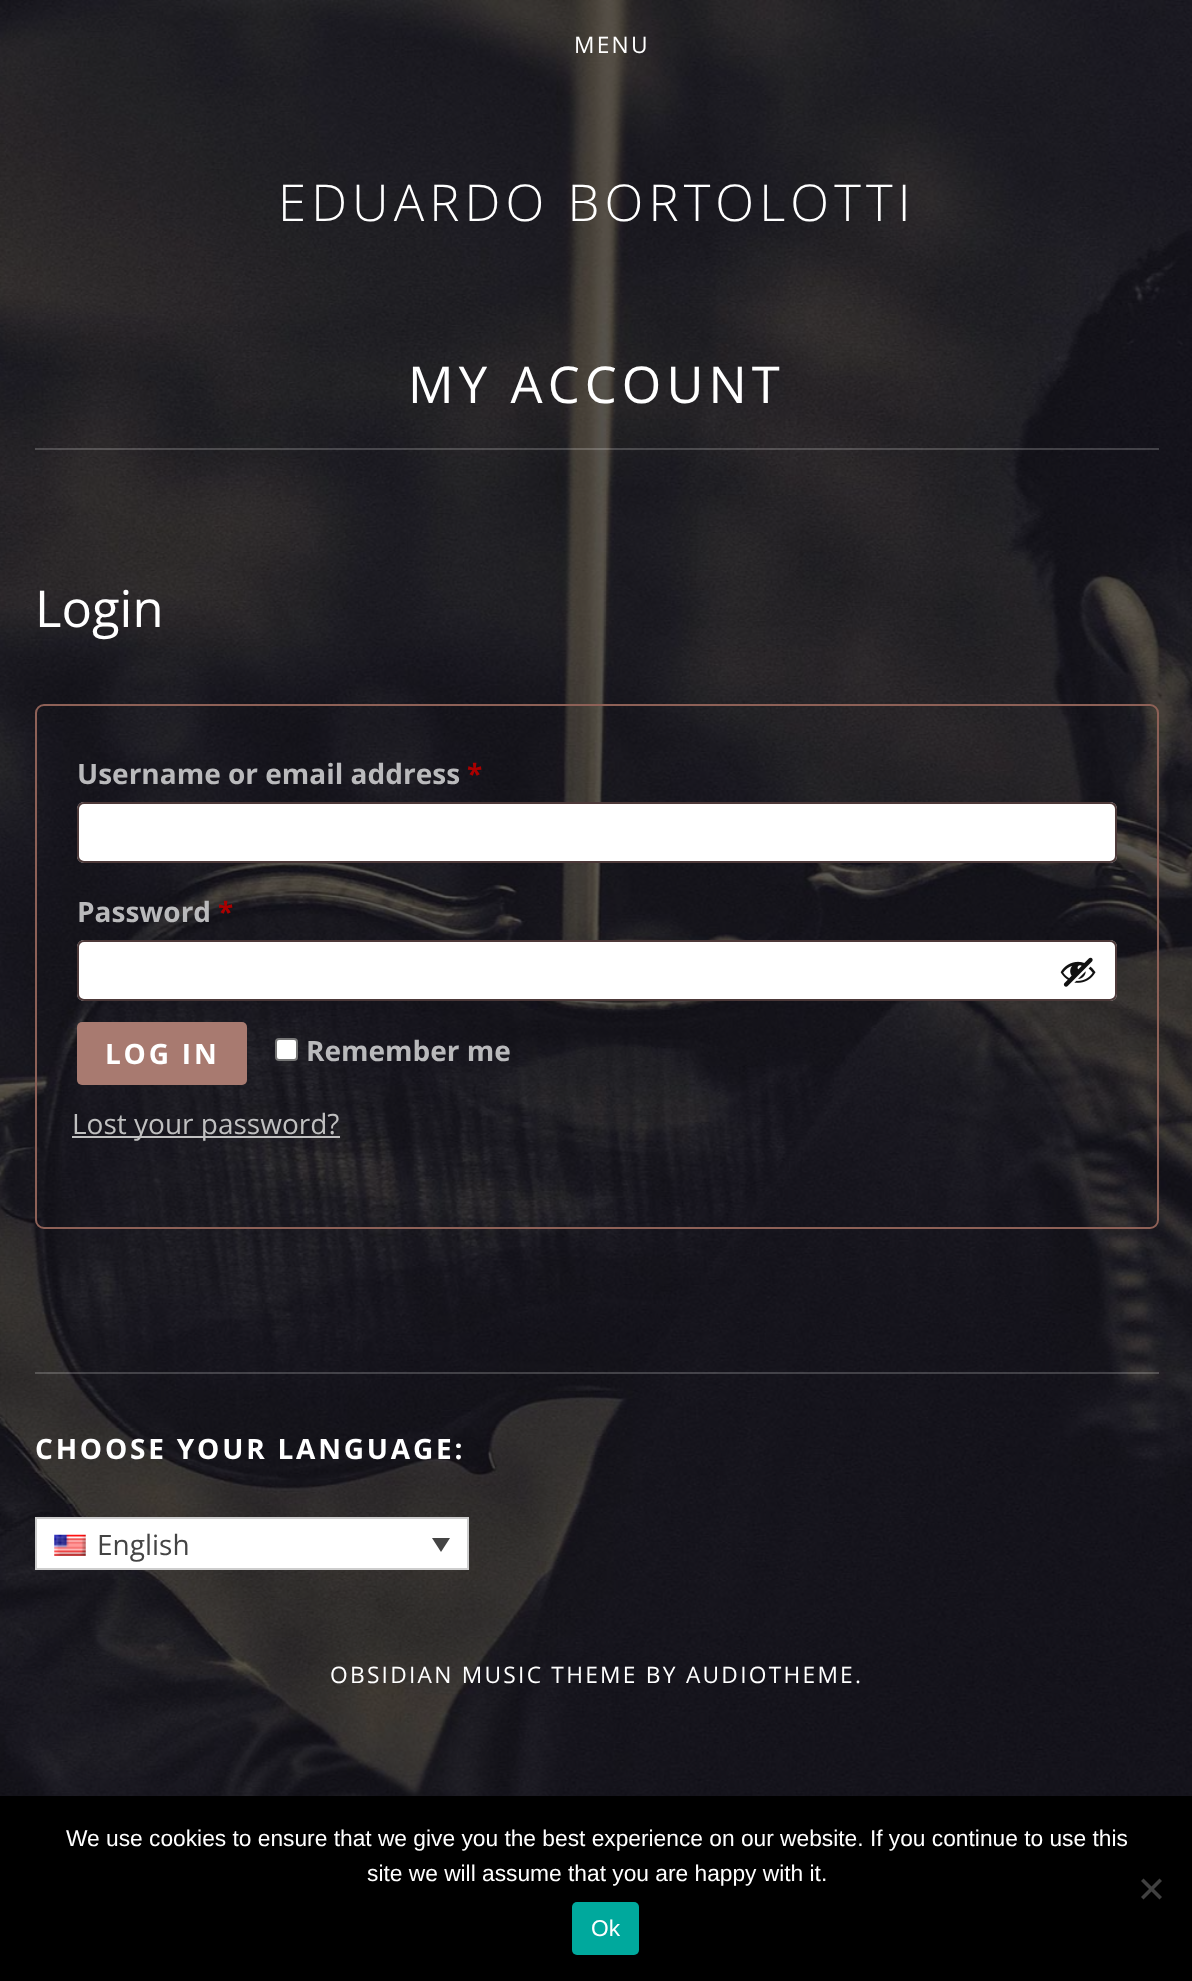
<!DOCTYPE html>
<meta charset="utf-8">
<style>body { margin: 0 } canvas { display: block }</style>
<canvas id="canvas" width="1192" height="1981"></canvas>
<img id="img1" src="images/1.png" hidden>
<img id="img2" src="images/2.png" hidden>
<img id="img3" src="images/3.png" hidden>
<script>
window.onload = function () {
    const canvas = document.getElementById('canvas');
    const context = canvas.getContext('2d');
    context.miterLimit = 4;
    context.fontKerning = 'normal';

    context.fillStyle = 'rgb(255, 255, 255)';
    context.fillRect(0, 0, 1192, 1981);
    context.drawImage(document.getElementById('img1'), 0, 0, 1192, 1796);
    context.fillStyle = 'rgba(255, 255, 255, 0.2)';
    context.fillRect(35, 448, 1124, 2);
    context.beginPath();
    context.roundRect(36, 705, 1122, 523, 8);
    context.strokeStyle = 'rgb(142, 97, 87)';
    context.lineWidth = 2;
    context.stroke();
    context.fillStyle = 'rgb(255, 255, 255)';
    context.beginPath();
    context.roundRect(77, 802, 1040, 61, 7);
    context.fill();
    context.beginPath();
    context.roundRect(78, 803, 1038, 59, 6);
    context.strokeStyle = 'rgba(32, 7, 7, 0.8)';
    context.stroke();
    context.beginPath();
    context.roundRect(77, 940, 1040, 61, 7);
    context.fill();
    context.beginPath();
    context.roundRect(78, 941, 1038, 59, 6);
    context.stroke();
    context.drawImage(document.getElementById('img2'), 1060, 957, 36, 30);
    context.fillStyle = 'rgb(168, 122, 112)';
    context.beginPath();
    context.roundRect(77, 1022, 170, 63, 5);
    context.fill();
    context.fillStyle = 'rgb(255, 255, 255)';
    context.beginPath();
    context.roundRect(276, 1039, 21, 21, 3);
    context.fill();
    context.strokeStyle = 'rgb(118, 118, 118)';
    context.stroke();
    context.fillStyle = 'rgb(192, 192, 192)';
    context.fillRect(72, 1136, 268, 2);
    context.fillStyle = 'rgba(255, 255, 255, 0.2)';
    context.fillRect(35, 1372, 1124, 2);
    context.fillStyle = 'rgb(255, 255, 255)';
    context.beginPath();
    context.rect(36, 1518, 432, 51);
    context.fill();
    context.strokeStyle = 'rgb(205, 205, 205)';
    context.stroke();
    context.drawImage(document.getElementById('img3'), 54, 1534, 32, 22);
    context.fillStyle = 'rgb(68, 68, 68)';
    context.beginPath();
    context.moveTo(432, 1538);
    context.lineTo(450, 1538);
    context.lineTo(441, 1552);
    context.closePath();
    context.fill();
    context.fillStyle = 'rgb(0, 0, 0)';
    context.fillRect(0, 1796, 1192, 185);
    context.fillStyle = 'rgb(64, 64, 64)';
    context.beginPath();
    context.moveTo(1159.5, 1878.5);
    context.lineTo(1162, 1881);
    context.lineTo(1143.5, 1899.5);
    context.lineTo(1141, 1897);
    context.closePath();
    context.fill();
    context.beginPath();
    context.moveTo(1141, 1881);
    context.lineTo(1143.5, 1878.5);
    context.lineTo(1162, 1897);
    context.lineTo(1159.5, 1899.5);
    context.closePath();
    context.fill();
    context.fillStyle = 'rgb(0, 169, 157)';
    context.beginPath();
    context.roundRect(572, 1902, 67, 53, 5);
    context.fill();
    context.letterSpacing = '2.25px';
    context.font = '22.75px Open Sans';
    context.fillStyle = 'rgb(255, 255, 255)';
    context.fillText('MENU', 574, 53);
    context.letterSpacing = '5.1px';
    context.font = '300 50.75px Open Sans';
    context.fillText('EDUARDO BORTOLOTTI', 278, 221);
    context.font = '50.75px Open Sans';
    context.fillText('MY ACCOUNT', 408, 403);
    context.letterSpacing = '0px';
    context.fillText('Login', 35, 627);
    context.font = 'bold 28px Open Sans';
    context.fillStyle = 'rgb(186, 186, 188)';
    context.fillText('Username or email address', 77, 784);
    context.fillStyle = 'rgb(170, 0, 0)';
    context.fillText('*', 467, 784);
    context.fillStyle = 'rgb(186, 186, 188)';
    context.fillText('Password', 77, 922);
    context.fillStyle = 'rgb(170, 0, 0)';
    context.fillText('*', 218, 922);
    context.letterSpacing = '2.8px';
    context.fillStyle = 'rgb(255, 255, 255)';
    context.fillText('LOG IN', 105, 1064);
    context.letterSpacing = '0px';
    context.fillStyle = 'rgb(186, 186, 188)';
    context.fillText('Remember me', 306, 1061);
    context.font = '28px Open Sans';
    context.fillStyle = 'rgb(192, 192, 192)';
    context.fillText('Lost your password?', 72, 1134);
    context.letterSpacing = '2.8px';
    context.font = 'bold 28px Open Sans';
    context.fillStyle = 'rgb(255, 255, 255)';
    context.fillText('CHOOSE YOUR LANGUAGE:', 35, 1459);
    context.letterSpacing = '0px';
    context.font = '28px Open Sans';
    context.fillStyle = 'rgb(68, 68, 68)';
    context.fillText('English', 97, 1555);
    context.letterSpacing = '2.25px';
    context.font = '22.75px Open Sans';
    context.fillStyle = 'rgb(255, 255, 255)';
    context.fillText('OBSIDIAN MUSIC THEME BY AUDIOTHEME.', 330, 1683);
    context.letterSpacing = '0px';
    context.font = '22.75px Liberation Sans';
    context.fillText('We use cookies to ensure that we give you the best experience on our website. If you continue to use this', 66, 1846);
    context.fillText('site we will assume that you are happy with it.', 367, 1881);
    context.fillText('Ok', 591, 1936);
};
</script>
